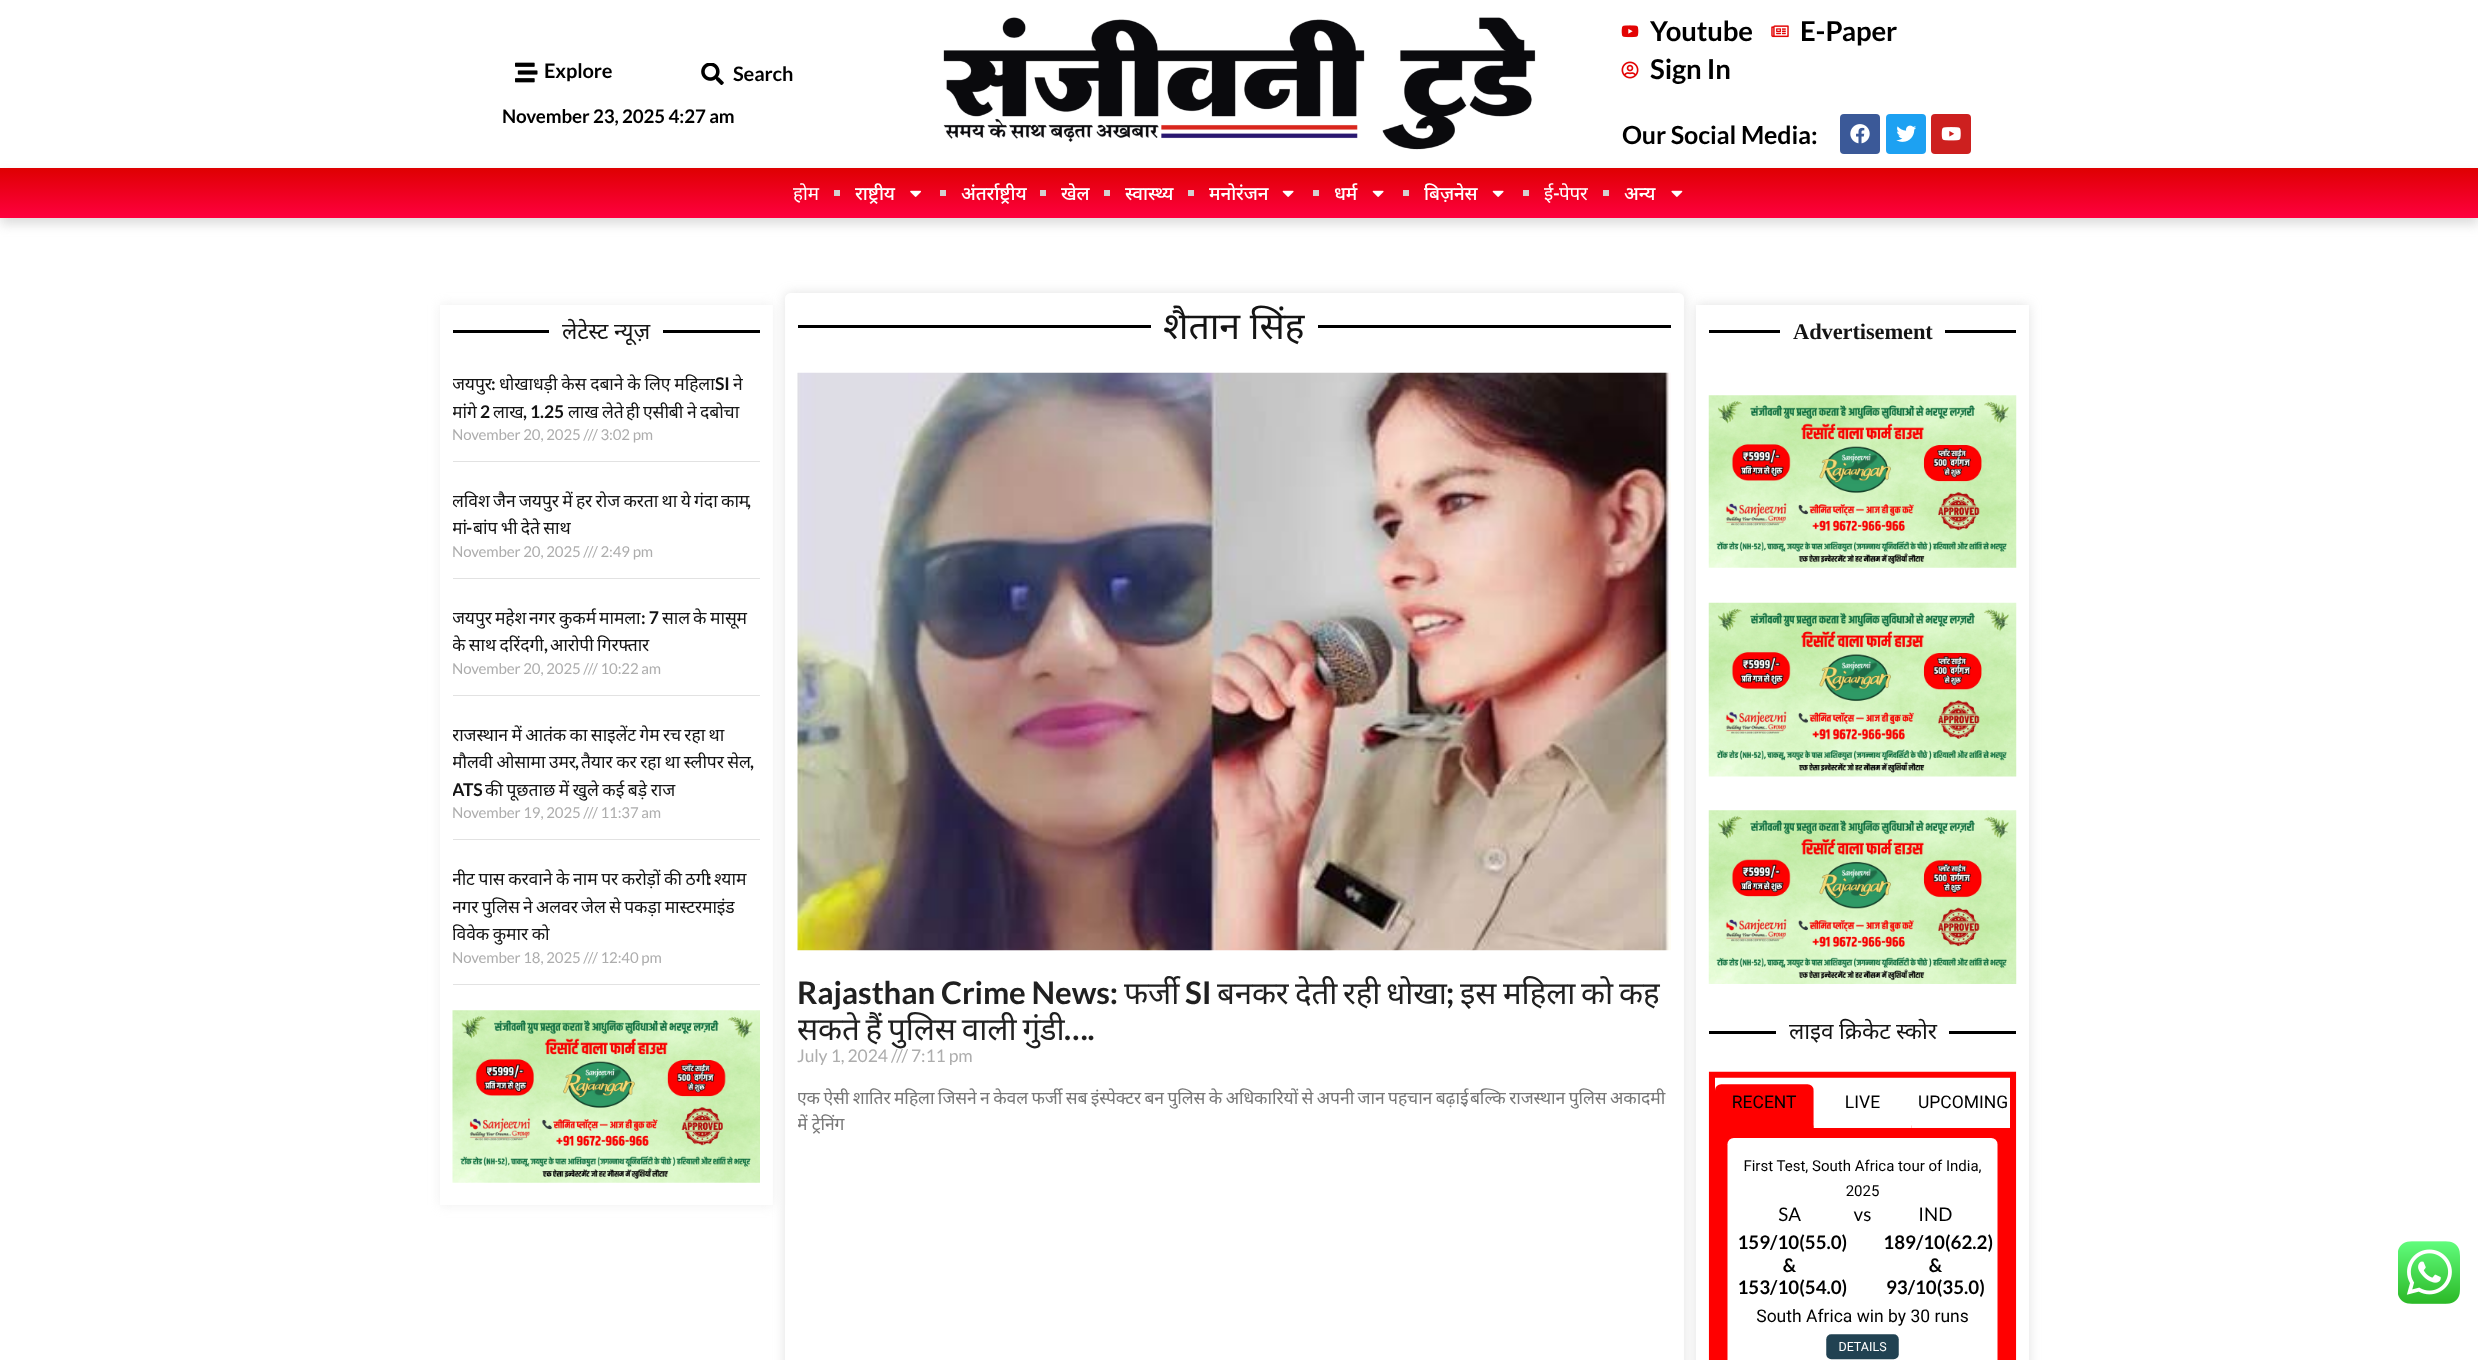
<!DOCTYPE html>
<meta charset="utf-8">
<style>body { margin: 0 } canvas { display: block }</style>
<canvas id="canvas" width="2478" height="1360"></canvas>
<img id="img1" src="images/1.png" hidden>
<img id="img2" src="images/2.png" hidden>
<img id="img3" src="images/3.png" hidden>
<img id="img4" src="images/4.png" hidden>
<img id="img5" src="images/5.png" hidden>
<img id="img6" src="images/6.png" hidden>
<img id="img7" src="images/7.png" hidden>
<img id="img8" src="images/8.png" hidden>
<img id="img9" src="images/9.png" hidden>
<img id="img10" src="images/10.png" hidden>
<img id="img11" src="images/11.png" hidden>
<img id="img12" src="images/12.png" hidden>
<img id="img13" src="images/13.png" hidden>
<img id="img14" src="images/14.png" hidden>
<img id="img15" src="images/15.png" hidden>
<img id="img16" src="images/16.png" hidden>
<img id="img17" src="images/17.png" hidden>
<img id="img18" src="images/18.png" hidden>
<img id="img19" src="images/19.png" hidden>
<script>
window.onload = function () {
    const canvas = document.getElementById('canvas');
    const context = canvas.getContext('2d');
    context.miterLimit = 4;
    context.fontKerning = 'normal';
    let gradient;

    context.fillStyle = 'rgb(255, 255, 255)';
    context.fillRect(0, 0, 2478, 1360);
    context.drawImage(document.getElementById('img1'), 515, 62, 23, 21);
    context.drawImage(document.getElementById('img2'), 701, 63, 23, 22);
    context.drawImage(document.getElementById('img3'), 943, 17, 593, 133);
    context.drawImage(document.getElementById('img4'), 1621, 25, 18, 13);
    context.drawImage(document.getElementById('img5'), 1771, 25, 18, 13);
    context.drawImage(document.getElementById('img6'), 1621, 61, 18, 18);
    context.fillStyle = 'rgb(59, 89, 152)';
    context.beginPath();
    context.roundRect(1840, 114, 40, 40, 4);
    context.fill();
    context.drawImage(document.getElementById('img7'), 1850, 124, 20, 20);
    context.fillStyle = 'rgb(29, 161, 242)';
    context.beginPath();
    context.roundRect(1886, 114, 40, 40, 4);
    context.fill();
    context.drawImage(document.getElementById('img8'), 1896, 125, 20, 17);
    context.fillStyle = 'rgb(205, 32, 31)';
    context.beginPath();
    context.roundRect(1931, 114, 40, 40, 4);
    context.fill();
    context.drawImage(document.getElementById('img9'), 1941, 127, 20, 14);
    context.fillStyle = 'rgba(161, 161, 161, 0.39)';
    context.filter = 'blur(6px)';
    context.beginPath();
    context.rect(0, 174, 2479, 50);
    context.fill();
    context.filter = 'none';
    gradient = context.createLinearGradient(1239, 167, 1239, 218);
    gradient.addColorStop(0, 'rgb(222, 0, 0)');
    gradient.addColorStop(1, 'rgb(255, 0, 63)');
    context.fillStyle = gradient;
    context.fillRect(0, 168, 2478, 50);
    context.fillStyle = 'rgb(212, 207, 207)';
    context.fillRect(834, 190, 6, 6);
    context.drawImage(document.getElementById('img10'), 910, 190, 11, 7);
    context.fillRect(940, 190, 6, 6);
    context.fillRect(1040, 190, 6, 6);
    context.fillRect(1104, 190, 6, 6);
    context.fillRect(1188, 190, 6, 6);
    context.drawImage(document.getElementById('img11'), 1282, 190, 12, 7);
    context.fillRect(1313, 190, 6, 6);
    context.drawImage(document.getElementById('img11'), 1372, 190, 12, 7);
    context.fillRect(1403, 190, 6, 6);
    context.drawImage(document.getElementById('img11'), 1492, 190, 12, 7);
    context.fillRect(1523, 190, 6, 6);
    context.fillRect(1603, 190, 6, 6);
    context.drawImage(document.getElementById('img12'), 1671, 190, 12, 7);
    context.fillStyle = 'rgba(201, 201, 201, 0.31)';
    context.filter = 'blur(6px)';
    context.beginPath();
    context.rect(440, 305, 333, 900);
    context.fill();
    context.filter = 'none';
    context.fillStyle = 'rgb(255, 255, 255)';
    context.fillRect(440, 305, 333, 900);
    context.fillStyle = 'rgb(0, 0, 0)';
    context.fillRect(453, 330, 96, 3);
    context.fillRect(663, 330, 97, 3);
    context.fillStyle = 'rgb(226, 226, 226)';
    context.fillRect(453, 461, 307, 1);
    context.fillRect(453, 578, 307, 1);
    context.fillRect(453, 695, 307, 1);
    context.fillRect(453, 839, 307, 1);
    context.fillRect(453, 984, 307, 1);
    context.drawImage(document.getElementById('img13'), 452, 1010, 308, 173);
    context.save();
    context.beginPath();
    context.moveTo(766, 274);
    context.lineTo(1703, 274);
    context.lineTo(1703, 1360);
    context.lineTo(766, 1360);
    context.closePath();
    context.moveTo(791, 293);
    context.lineTo(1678, 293);
    context.bezierCurveTo(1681.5, 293, 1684, 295.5, 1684, 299);
    context.lineTo(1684, 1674);
    context.bezierCurveTo(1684, 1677.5, 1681.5, 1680, 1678, 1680);
    context.lineTo(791, 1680);
    context.bezierCurveTo(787.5, 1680, 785, 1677.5, 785, 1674);
    context.lineTo(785, 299);
    context.bezierCurveTo(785, 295.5, 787.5, 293, 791, 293);
    context.closePath();
    context.clip('evenodd');
    context.fillStyle = 'rgba(154, 154, 154, 0.3)';
    context.filter = 'blur(6px)';
    context.beginPath();
    context.roundRect(785, 293, 899, 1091, 6);
    context.fill();
    context.filter = 'none';
    context.restore();
    context.fillStyle = 'rgb(0, 0, 0)';
    context.fillRect(798, 325, 353, 3);
    context.fillRect(1318, 325, 353, 3);
    context.drawImage(document.getElementById('img14'), 797, 372, 874, 579);
    context.fillStyle = 'rgba(154, 154, 154, 0.3)';
    context.filter = 'blur(6px)';
    context.beginPath();
    context.rect(1696, 305, 333, 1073);
    context.fill();
    context.filter = 'none';
    context.fillStyle = 'rgb(255, 255, 255)';
    context.fillRect(1696, 305, 333, 1055);
    context.fillStyle = 'rgb(0, 0, 0)';
    context.fillRect(1709, 330, 71, 3);
    context.fillRect(1945, 330, 71, 3);
    context.drawImage(document.getElementById('img15'), 1708, 395, 309, 173);
    context.drawImage(document.getElementById('img16'), 1708, 602, 309, 175);
    context.drawImage(document.getElementById('img17'), 1708, 810, 309, 174);
    context.fillRect(1709, 1031, 67, 3);
    context.fillRect(1949, 1031, 67, 3);
    context.drawImage(document.getElementById('img18'), 1708, 1071, 309, 289);
    context.drawImage(document.getElementById('img19'), 2398, 1241, 62, 63);
    context.letterSpacing = '-0.12px';
    context.font = 'bold 20px Lato';
    context.fillText('Explore', 544, 78);
    context.fillText('Search', 733, 81);
    context.font = 'bold 18.75px Lato';
    context.fillText('November 23, 2025 4:27 am', 502, 123);
    context.font = 'bold 27.5px Lato';
    context.fillText('Youtube', 1650, 41);
    context.fillText('E-Paper', 1800, 41);
    context.fillText('Sign In', 1650, 79);
    context.font = 'bold 25px Lato';
    context.fillText('Our Social Media:', 1622, 144);
    context.font = '18.75px Noto Sans';
    context.fillStyle = 'rgb(255, 255, 255)';
    context.fillText('होम', 793, 200);
    context.font = '500 18.75px Noto Sans';
    context.fillText('राष्ट्रीय', 855, 200);
    context.fillText('अंतर्राष्ट्रीय', 961, 200);
    context.fillText('खेल', 1061, 200);
    context.fillText('स्वास्थ्य', 1125, 200);
    context.fillText('मनोरंजन', 1209, 200);
    context.fillText('धर्म', 1334, 200);
    context.fillText('बिज़नेस', 1424, 200);
    context.font = '18.75px Noto Sans';
    context.fillText('ई', 1544, 200);
    context.font = 'bold 18.75px Lato';
    context.fillText('-', 1553, 200);
    context.font = '18.75px Noto Sans';
    context.fillText('पेपर', 1559, 200);
    context.font = '500 18.75px Noto Sans';
    context.fillText('अन्य', 1624, 200);
    context.font = '22.5px Noto Sans';
    context.fillStyle = 'rgb(20, 20, 20)';
    context.fillText('लेटेस्ट न्यूज़', 562, 339);
    context.save();
    context.beginPath();
    context.rect(453, 370, 307, 91);
    context.clip();
    context.font = '17.5px Noto Sans';
    context.fillText('जयपुर', 452, 390);
    context.restore();
    context.font = 'bold 17.5px Lato';
    context.fillText(':', 491, 390);
    context.wordSpacing = '-0.5px';
    context.font = '17.5px Noto Sans';
    context.fillText('धोखाधड़ी केस दबाने के लिए महिला', 499, 390);
    context.wordSpacing = '0px';
    context.font = 'bold 17.5px Lato';
    context.fillText('SI', 715, 390);
    context.font = '17.5px Noto Sans';
    context.fillText('ने', 733, 390);
    context.save();
    context.beginPath();
    context.rect(453, 370, 307, 91);
    context.clip();
    context.fillText('मांगे', 452, 418);
    context.restore();
    context.font = 'bold 17.5px Lato';
    context.fillText('2', 480, 418);
    context.font = '17.5px Noto Sans';
    context.fillText('लाख', 493, 418);
    context.font = 'bold 17.5px Lato';
    context.fillText(', 1.25', 523, 418);
    context.font = '17.5px Noto Sans';
    context.fillText('लाख', 568, 418);
    context.fillText('लेते', 602, 418);
    context.fillText('ही', 626, 418);
    context.fillText('एसीबी', 643, 418);
    context.fillText('ने', 687, 418);
    context.fillText('दबोचा', 700, 418);
    context.font = '15px Lato';
    context.fillStyle = 'rgb(173, 173, 173)';
    context.fillText('November 20, 2025 /// 3:02 pm', 452, 440);
    context.save();
    context.beginPath();
    context.rect(453, 488, 307, 90);
    context.clip();
    context.wordSpacing = '-1px';
    context.font = '17.5px Noto Sans';
    context.fillStyle = 'rgb(20, 20, 20)';
    context.fillText('लविश जैन जयपुर में हर रोज करता था ये गंदा काम', 452, 507);
    context.restore();
    context.font = 'bold 17.5px Lato';
    context.fillStyle = 'rgb(20, 20, 20)';
    context.fillText(',', 747, 507);
    context.save();
    context.beginPath();
    context.rect(453, 488, 307, 90);
    context.clip();
    context.font = '17.5px Noto Sans';
    context.fillText('मां', 452, 534);
    context.restore();
    context.fillText('-', 466, 534);
    context.wordSpacing = '-1px';
    context.font = '17.5px Noto Sans';
    context.fillText('बांप भी देते साथ', 473, 534);
    context.wordSpacing = '0px';
    context.font = '15px Lato';
    context.fillStyle = 'rgb(173, 173, 173)';
    context.fillText('November 20, 2025 /// 2:49 pm', 452, 557);
    context.save();
    context.beginPath();
    context.rect(453, 604, 307, 91);
    context.clip();
    context.font = '17.5px Noto Sans';
    context.fillStyle = 'rgb(20, 20, 20)';
    context.fillText('जयपुर', 452, 624);
    context.restore();
    context.font = '17.5px Noto Sans';
    context.fillStyle = 'rgb(20, 20, 20)';
    context.fillText('महेश', 495, 624);
    context.fillText('नगर', 529, 624);
    context.fillText('कुकर्म', 559, 624);
    context.fillText('मामला', 599, 624);
    context.font = 'bold 17.5px Lato';
    context.fillText(': 7', 641, 624);
    context.font = '17.5px Noto Sans';
    context.fillText('साल', 662, 624);
    context.fillText('के', 693, 624);
    context.fillText('मासूम', 710, 624);
    context.save();
    context.beginPath();
    context.rect(453, 604, 307, 91);
    context.clip();
    context.wordSpacing = '-1px';
    context.fillText('के साथ दरिंदगी', 452, 651);
    context.restore();
    context.font = 'bold 17.5px Lato';
    context.fillText(',', 544, 651);
    context.wordSpacing = '-1px';
    context.font = '17.5px Noto Sans';
    context.fillText('आरोपी गिरफ्तार', 550, 651);
    context.wordSpacing = '0px';
    context.font = '15px Lato';
    context.fillStyle = 'rgb(173, 173, 173)';
    context.fillText('November 20, 2025 /// 10:22 am', 452, 674);
    context.save();
    context.beginPath();
    context.rect(453, 721, 307, 118);
    context.clip();
    context.wordSpacing = '-1px';
    context.font = '17.5px Noto Sans';
    context.fillStyle = 'rgb(20, 20, 20)';
    context.fillText('राजस्थान में आतंक का साइलेंट गेम रच रहा था', 452, 741);
    context.wordSpacing = '-0.75px';
    context.fillText('मौलवी ओसामा उमर', 452, 768);
    context.restore();
    context.font = 'bold 17.5px Lato';
    context.fillStyle = 'rgb(20, 20, 20)';
    context.fillText(',', 575, 768);
    context.wordSpacing = '-0.75px';
    context.font = '17.5px Noto Sans';
    context.fillText('तैयार कर रहा था स्लीपर सेल', 581, 768);
    context.wordSpacing = '0px';
    context.font = 'bold 17.5px Lato';
    context.fillText(',', 750, 768);
    context.save();
    context.beginPath();
    context.rect(453, 721, 307, 118);
    context.clip();
    context.fillText('ATS', 452, 796);
    context.restore();
    context.wordSpacing = '-0.75px';
    context.font = '17.5px Noto Sans';
    context.fillText('की पूछताछ में खुले कई बड़े राज', 485, 796);
    context.wordSpacing = '0px';
    context.font = '15px Lato';
    context.fillStyle = 'rgb(173, 173, 173)';
    context.fillText('November 19, 2025 /// 11:37 am', 452, 818);
    context.save();
    context.beginPath();
    context.rect(453, 865, 307, 119);
    context.clip();
    context.wordSpacing = '-0.75px';
    context.font = '17.5px Noto Sans';
    context.fillStyle = 'rgb(20, 20, 20)';
    context.fillText('नीट पास करवाने के नाम पर करोड़ों की ठगी', 452, 885);
    context.restore();
    context.font = 'bold 17.5px Lato';
    context.fillStyle = 'rgb(20, 20, 20)';
    context.fillText(':', 707, 885);
    context.font = '17.5px Noto Sans';
    context.fillText('श्याम', 714, 885);
    context.save();
    context.beginPath();
    context.rect(453, 865, 307, 119);
    context.clip();
    context.wordSpacing = '-1px';
    context.fillText('नगर पुलिस ने अलवर जेल से पकड़ा मास्टरमाइंड', 452, 913);
    context.wordSpacing = '-0.75px';
    context.fillText('विवेक कुमार को', 452, 940);
    context.restore();
    context.font = '15px Lato';
    context.fillStyle = 'rgb(173, 173, 173)';
    context.fillText('November 18, 2025 /// 12:40 pm', 452, 963);
    context.font = '37.5px Noto Sans';
    context.fillStyle = 'rgb(20, 20, 20)';
    context.fillText('शैतान सिंह', 1163, 339);
    context.font = 'bold 31.25px Lato';
    context.fillStyle = 'rgb(32, 32, 32)';
    context.fillText('Rajasthan Crime News:', 797, 1004);
    context.font = '31.25px Noto Sans';
    context.fillText('फर्जी', 1124, 1004);
    context.font = 'bold 31.25px Lato';
    context.fillText('SI', 1185, 1004);
    context.font = '31.25px Noto Sans';
    context.fillText('बनकर', 1217, 1004);
    context.fillText('देती', 1295, 1004);
    context.fillText('रही', 1343, 1004);
    context.fillText('धोखा', 1386, 1004);
    context.font = 'bold 31.25px Lato';
    context.fillText(';', 1446, 1004);
    context.font = '31.25px Noto Sans';
    context.fillText('इस', 1460, 1004);
    context.fillText('महिला', 1503, 1004);
    context.fillText('को', 1581, 1004);
    context.fillText('कह', 1619, 1004);
    context.save();
    context.beginPath();
    context.rect(798, 373, 873, 776);
    context.clip();
    context.wordSpacing = '-2px';
    context.fillText('सकते हैं पुलिस वाली गुंडी', 797, 1040);
    context.restore();
    context.font = 'bold 31.25px Lato';
    context.fillText('….', 1064, 1040);
    context.font = '17.5px Lato';
    context.fillStyle = 'rgb(173, 173, 173)';
    context.fillText('July 1, 2024 /// 7:11 pm', 797, 1062);
    context.save();
    context.beginPath();
    context.rect(798, 373, 873, 776);
    context.clip();
    context.wordSpacing = '-0.9px';
    context.font = '17.5px Noto Sans';
    context.fillStyle = 'rgb(119, 119, 119)';
    context.fillText('एक ऐसी शातिर महिला जिसने न केवल फर्जी सब इंस्पेक्टर बन पुलिस के अधिकारियों से अपनी जान पहचान बढ़ाई', 797, 1104);
    context.restore();
    context.fillStyle = 'rgb(119, 119, 119)';
    context.fillText(',', 1464, 1104);
    context.wordSpacing = '-0.9px';
    context.font = '17.5px Noto Sans';
    context.fillText('बल्कि राजस्थान पुलिस अकादमी', 1470, 1104);
    context.save();
    context.beginPath();
    context.rect(798, 373, 873, 776);
    context.clip();
    context.wordSpacing = '0px';
    context.fillText('में ट्रेनिंग', 797, 1130);
    context.restore();
    context.wordSpacing = '0px';
    context.font = 'bold 22.5px Liberation Serif';
    context.fillStyle = 'rgb(20, 20, 20)';
    context.fillText('Advertisement', 1793, 339);
    context.font = '22.5px Noto Sans';
    context.fillText('लाइव क्रिकेट स्कोर', 1789, 1039);
};
</script>
